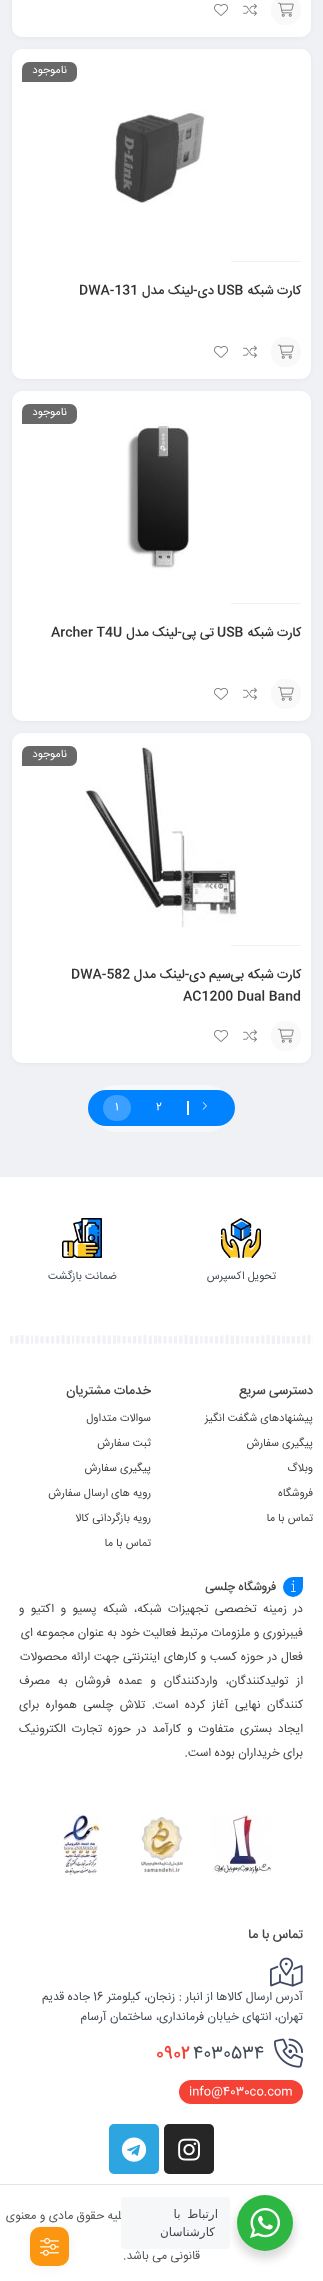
<!DOCTYPE html>
<meta charset="utf-8">
<style>body { margin: 0 } canvas { display: block }</style>
<canvas id="canvas" width="323" height="2281"></canvas>
<img id="img1" src="images/1.png" hidden>
<img id="img2" src="images/2.png" hidden>
<img id="img3" src="images/3.png" hidden>
<img id="img4" src="images/4.png" hidden>
<img id="img5" src="images/5.png" hidden>
<img id="img6" src="images/6.png" hidden>
<img id="img7" src="images/7.png" hidden>
<img id="img8" src="images/8.png" hidden>
<img id="img9" src="images/9.png" hidden>
<img id="img10" src="images/10.png" hidden>
<img id="img11" src="images/11.png" hidden>
<img id="img12" src="images/12.png" hidden>
<img id="img13" src="images/13.png" hidden>
<img id="img14" src="images/14.png" hidden>
<img id="img15" src="images/15.png" hidden>
<img id="img16" src="images/16.png" hidden>
<img id="img17" src="images/17.png" hidden>
<img id="img18" src="images/18.png" hidden>
<img id="img19" src="images/19.png" hidden>
<img id="img20" src="images/20.png" hidden>
<script>
window.onload = function () {
    const canvas = document.getElementById('canvas');
    const context = canvas.getContext('2d');
    context.miterLimit = 4;
    context.fontKerning = 'normal';

    context.fillStyle = 'rgb(239, 241, 245)';
    context.fillRect(0, 0, 323, 2281);
    context.fillStyle = 'rgba(0, 0, 0, 0.1)';
    context.filter = 'blur(3.5px)';
    context.beginPath();
    context.roundRect(15, -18, 293, 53, 7);
    context.fill();
    context.filter = 'none';
    context.fillStyle = 'rgb(255, 255, 255)';
    context.beginPath();
    context.roundRect(12, -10, 299, 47, 10);
    context.fill();
    context.fillStyle = 'rgb(249, 249, 249)';
    context.beginPath();
    context.roundRect(271, -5, 30, 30, 14);
    context.fill();
    context.drawImage(document.getElementById('img1'), 278, 2, 16, 15);
    context.drawImage(document.getElementById('img2'), 243, 3, 14, 13);
    context.drawImage(document.getElementById('img3'), 214, 3, 14, 13);
    context.fillStyle = 'rgba(0, 0, 0, 0.1)';
    context.filter = 'blur(3.5px)';
    context.beginPath();
    context.roundRect(15, 53, 293, 324, 7);
    context.fill();
    context.filter = 'none';
    context.fillStyle = 'rgb(255, 255, 255)';
    context.beginPath();
    context.roundRect(12, 49, 299, 330, 10);
    context.fill();
    context.fillStyle = 'rgb(104, 104, 104)';
    context.beginPath();
    context.roundRect(22, 62, 55, 20, [7, 7, 7, 0]);
    context.fill();
    context.drawImage(document.getElementById('img4'), 110, 110, 95, 94);
    context.fillStyle = 'rgb(241, 241, 241)';
    context.fillRect(231, 261, 70, 1);
    context.fillStyle = 'rgb(249, 249, 249)';
    context.beginPath();
    context.roundRect(271, 337, 30, 30, 14);
    context.fill();
    context.drawImage(document.getElementById('img1'), 278, 344, 16, 15);
    context.drawImage(document.getElementById('img2'), 243, 345, 14, 13);
    context.drawImage(document.getElementById('img3'), 214, 345, 14, 13);
    context.fillStyle = 'rgba(0, 0, 0, 0.1)';
    context.filter = 'blur(3.5px)';
    context.beginPath();
    context.roundRect(15, 395, 293, 324, 7);
    context.fill();
    context.filter = 'none';
    context.fillStyle = 'rgb(255, 255, 255)';
    context.beginPath();
    context.roundRect(12, 391, 299, 330, 10);
    context.fill();
    context.fillStyle = 'rgb(104, 104, 104)';
    context.beginPath();
    context.roundRect(22, 404, 55, 20, [7, 7, 7, 0]);
    context.fill();
    context.drawImage(document.getElementById('img5'), 127, 423, 62, 148);
    context.fillStyle = 'rgb(241, 241, 241)';
    context.fillRect(231, 603, 70, 1);
    context.fillStyle = 'rgb(249, 249, 249)';
    context.beginPath();
    context.roundRect(271, 679, 30, 30, 14);
    context.fill();
    context.drawImage(document.getElementById('img1'), 278, 686, 16, 15);
    context.drawImage(document.getElementById('img2'), 243, 687, 14, 13);
    context.drawImage(document.getElementById('img3'), 214, 687, 14, 13);
    context.fillStyle = 'rgba(0, 0, 0, 0.1)';
    context.filter = 'blur(3.5px)';
    context.beginPath();
    context.roundRect(15, 737, 293, 324, 7);
    context.fill();
    context.filter = 'none';
    context.fillStyle = 'rgb(255, 255, 255)';
    context.beginPath();
    context.roundRect(12, 733, 299, 330, 10);
    context.fill();
    context.drawImage(document.getElementById('img6'), 85, 746, 152, 183);
    context.fillStyle = 'rgb(104, 104, 104)';
    context.beginPath();
    context.roundRect(22, 746, 55, 20, [7, 7, 7, 0]);
    context.fill();
    context.fillStyle = 'rgb(241, 241, 241)';
    context.fillRect(231, 945, 70, 1);
    context.fillStyle = 'rgb(249, 249, 249)';
    context.beginPath();
    context.roundRect(271, 1021, 30, 30, 14);
    context.fill();
    context.drawImage(document.getElementById('img1'), 278, 1028, 16, 15);
    context.drawImage(document.getElementById('img2'), 243, 1029, 14, 13);
    context.drawImage(document.getElementById('img3'), 214, 1029, 14, 13);
    context.fillStyle = 'rgb(247, 248, 250)';
    context.beginPath();
    context.roundRect(92, 1085, 139, 47, 23.5);
    context.fill();
    context.fillStyle = 'rgb(1, 131, 255)';
    context.beginPath();
    context.roundRect(88, 1090, 147, 36, 18);
    context.fill();
    context.fillStyle = 'rgb(255, 255, 255)';
    context.fillRect(187, 1101, 2, 14);
    context.drawImage(document.getElementById('img7'), 202, 1102, 5, 8);
    context.fillStyle = 'rgb(59, 160, 255)';
    context.beginPath();
    context.roundRect(103, 1095, 28, 26, 13);
    context.fill();
    context.fillStyle = 'rgb(255, 255, 255)';
    context.fillRect(0, 2185, 323, 96);
    context.fillStyle = 'rgba(0, 0, 0, 0.15)';
    context.filter = 'blur(7px)';
    context.beginPath();
    context.roundRect(35, 2233, 29, 29, 5);
    context.fill();
    context.filter = 'none';
    context.fillStyle = 'rgb(252, 149, 15)';
    context.beginPath();
    context.roundRect(30, 2227, 39, 39, 10);
    context.fill();
    context.drawImage(document.getElementById('img8'), 40, 2238, 19, 18);
    context.fillStyle = 'rgb(255, 255, 255)';
    context.fillRect(0, 1177, 323, 1007);
    context.drawImage(document.getElementById('img9'), 221, 1218, 40, 40);
    context.drawImage(document.getElementById('img10'), 62, 1218, 40, 40);
    context.drawImage(document.getElementById('img11'), 10, 1335, 303, 9);
    context.fillStyle = 'rgb(1, 131, 255)';
    context.beginPath();
    context.roundRect(283, 1577, 20, 20, [10, 0, 10, 10]);
    context.fill();
    context.drawImage(document.getElementById('img12'), 291, 1580, 5, 12);
    context.drawImage(document.getElementById('img13'), 211, 1815, 60, 60);
    context.drawImage(document.getElementById('img14'), 141, 1816, 42, 57);
    context.drawImage(document.getElementById('img15'), 62, 1815, 40, 60);
    context.drawImage(document.getElementById('img16'), 270, 1957, 33, 30);
    context.drawImage(document.getElementById('img17'), 274, 2038, 29, 30);
    context.fillStyle = 'rgb(244, 67, 54)';
    context.beginPath();
    context.roundRect(179, 2080, 124, 24, 12);
    context.fill();
    context.fillStyle = 'rgb(38, 38, 38)';
    context.beginPath();
    context.roundRect(164, 2124, 50, 50, 5);
    context.fill();
    context.drawImage(document.getElementById('img18'), 178, 2138, 22, 23);
    context.fillStyle = 'rgb(44, 165, 224)';
    context.beginPath();
    context.roundRect(109, 2124, 50, 50, 5);
    context.fill();
    context.drawImage(document.getElementById('img19'), 121, 2137, 26, 25);
    context.fillStyle = 'rgb(227, 227, 235)';
    context.fillRect(0, 2184, 323, 1);
    context.fillStyle = 'rgba(0, 0, 0, 0.14)';
    context.filter = 'blur(4px)';
    context.beginPath();
    context.roundRect(235, 2199, 60, 60, 30);
    context.fill();
    context.filter = 'none';
    context.fillStyle = 'rgb(45, 183, 66)';
    context.beginPath();
    context.arc(265, 2223, 28, 0, 2 * Math.PI);
    context.fill();
    context.drawImage(document.getElementById('img20'), 250, 2208, 30, 30);
    context.direction = 'rtl';
    context.font = '11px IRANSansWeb';
    context.fillStyle = 'rgb(255, 255, 255)';
    context.fillText('ناموجود', 67, 73);
    context.font = '500 13px IRANSansWeb';
    context.fillStyle = 'rgb(51, 51, 51)';
    context.fillText('کارت شبکه', 301, 294);
    context.direction = 'ltr';
    context.fillText('USB', 217, 294);
    context.direction = 'rtl';
    context.fillText('دی-لینک مدل', 214, 294);
    context.direction = 'ltr';
    context.fillText('DWA-131', 79, 294);
    context.direction = 'rtl';
    context.font = '11px IRANSansWeb';
    context.fillStyle = 'rgb(255, 255, 255)';
    context.fillText('ناموجود', 67, 415);
    context.font = '500 13px IRANSansWeb';
    context.fillStyle = 'rgb(51, 51, 51)';
    context.fillText('کارت شبکه', 301, 636);
    context.direction = 'ltr';
    context.fillText('USB', 217, 636);
    context.direction = 'rtl';
    context.fillText('تی پی-لینک مدل', 214, 636);
    context.direction = 'ltr';
    context.fillText('Archer T4U', 51, 636);
    context.direction = 'rtl';
    context.font = '11px IRANSansWeb';
    context.fillStyle = 'rgb(255, 255, 255)';
    context.fillText('ناموجود', 67, 757);
    context.font = '500 13px IRANSansWeb';
    context.fillStyle = 'rgb(51, 51, 51)';
    context.fillText('کارت شبکه بی‌سیم دی-لینک مدل', 301, 978);
    context.direction = 'ltr';
    context.fillText('DWA-582', 71, 978);
    context.fillText('AC1200 Dual Band', 183, 1000);
    context.font = '11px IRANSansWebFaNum';
    context.fillStyle = 'rgb(255, 255, 255)';
    context.fillText('2', 156, 1110);
    context.fillText('1', 115, 1110);
    context.direction = 'rtl';
    context.font = '11px IRANSansWeb';
    context.fillStyle = 'rgb(68, 76, 85)';
    context.fillText('تحویل اکسپرس', 276, 1279);
    context.fillText('ضمانت بازگشت', 117, 1279);
    context.font = '500 13px IRANSansWeb';
    context.fillStyle = 'rgb(69, 69, 69)';
    context.fillText('دسترسی سریع', 313, 1394);
    context.font = '11px IRANSansWeb';
    context.fillText('پیشنهادهای شگفت انگیز', 313, 1421);
    context.fillText('پیگیری سفارش', 313, 1446);
    context.fillText('وبلاگ', 313, 1471);
    context.fillText('فروشگاه', 313, 1496);
    context.fillText('تماس با ما', 313, 1521);
    context.font = '500 13px IRANSansWeb';
    context.fillText('خدمات مشتریان', 151, 1394);
    context.font = '11px IRANSansWeb';
    context.fillText('سوالات متداول', 151, 1421);
    context.fillText('ثبت سفارش', 151, 1446);
    context.fillText('پیگیری سفارش', 151, 1471);
    context.fillText('رویه های ارسال سفارش', 151, 1496);
    context.fillText('رویه بازگردانی کالا', 151, 1521);
    context.fillText('تماس با ما', 151, 1546);
    context.font = '500 12px IRANSansWeb';
    context.fillText('فروشگاه چلسی', 276, 1590);
    context.wordSpacing = '3px';
    context.font = '12px IRANSansWebFaNum';
    context.fillText('در زمینه تخصصی تجهیزات شبکه، شبکه پسیو و اکتیو و', 303, 1612);
    context.wordSpacing = '0px';
    context.fillText('فیبرنوری و ملزومات مرتبط فعالیت خود به عنوان مجموعه ای', 303, 1636);
    context.wordSpacing = '0.5px';
    context.fillText('فعال در حوزه کسب ‌و کارهای اینترنتی جهت ارائه محصولات', 303, 1660);
    context.wordSpacing = '4.5px';
    context.fillText('از تولیدکنندگان، واردکنندگان و عمده فروشان به مصرف', 303, 1684);
    context.wordSpacing = '3px';
    context.fillText('کنندگان نهایی آغاز کرده است. تلاش چلسی همواره برای', 303, 1708);
    context.wordSpacing = '2.5px';
    context.fillText('ایجاد بستری متفاوت و کارآمد در حوزه تجارت الکترونیک', 303, 1732);
    context.wordSpacing = '0px';
    context.fillText('برای خریداران بوده است.', 303, 1756);
    context.font = '500 13px IRANSansWeb';
    context.fillText('تماس با ما', 303, 1938);
    context.font = '12px IRANSansWebFaNum';
    context.fillStyle = 'rgb(68, 76, 85)';
    context.fillText('آدرس ارسال کالاها از انبار : زنجان، کیلومتر', 303, 2000);
    context.direction = 'ltr';
    context.fillText('16', 93, 2000);
    context.direction = 'rtl';
    context.fillText('جاده قدیم', 90, 2000);
    context.fillText('تهران، انتهای خیابان فرمانداری، ساختمان آرسام', 303, 2020);
    context.direction = 'ltr';
    context.font = '17px IRANSansWebFaNum';
    context.fillText('4030534', 193, 2058);
    context.font = '500 17px IRANSansWebFaNum';
    context.fillStyle = 'rgb(244, 67, 54)';
    context.fillText('0902', 156, 2058);
    context.font = '12px IRANSansWebFaNum';
    context.fillStyle = 'rgb(255, 255, 255)';
    context.fillText('info@4030co.com', 189, 2095);
    context.direction = 'rtl';
    context.font = '12px IRANSansWeb';
    context.fillStyle = 'rgb(85, 85, 85)';
    context.fillText('| کلیه حقوق مادی و معنوی', 133, 2219);
    context.fillText('قانونی می باشد.', 200, 2259);
    context.fillStyle = 'rgb(245, 247, 249)';
    context.beginPath();
    context.roundRect(121, 2197, 109, 52, 4);
    context.fill();
    context.letterSpacing = '-0.25px';
    context.wordSpacing = '3px';
    context.font = '12px DejaVu Sans';
    context.fillStyle = 'rgb(67, 71, 78)';
    context.fillText('ارتباط با', 218, 2218);
    context.wordSpacing = '0px';
    context.fillText('کارشناسان', 215, 2236);
};
</script>
